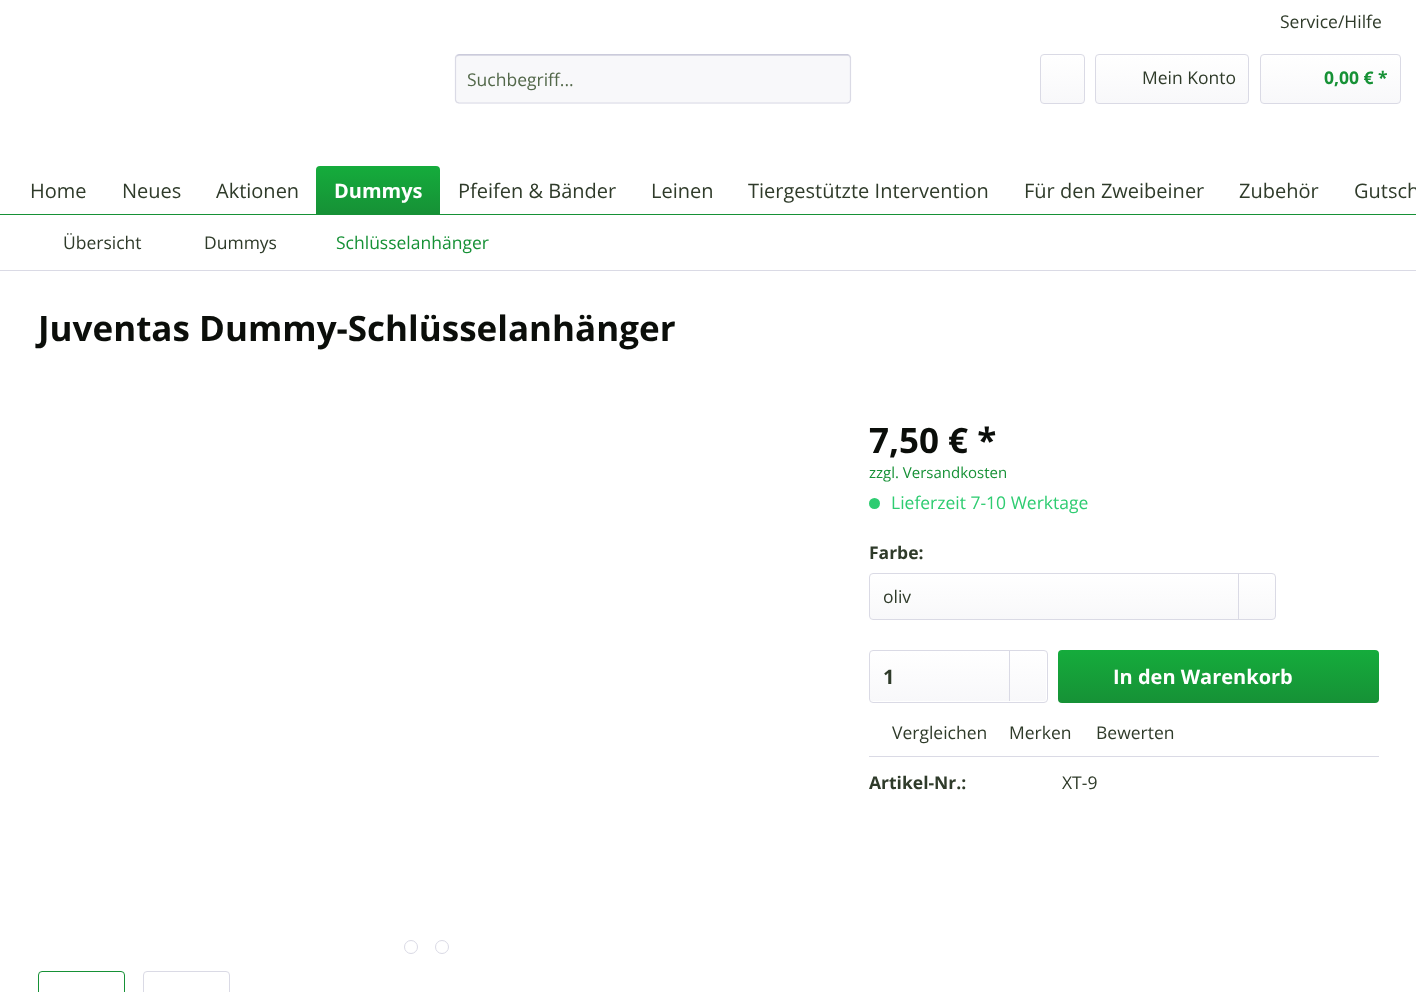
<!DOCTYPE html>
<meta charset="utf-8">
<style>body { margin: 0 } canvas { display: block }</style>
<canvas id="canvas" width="1416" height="992"></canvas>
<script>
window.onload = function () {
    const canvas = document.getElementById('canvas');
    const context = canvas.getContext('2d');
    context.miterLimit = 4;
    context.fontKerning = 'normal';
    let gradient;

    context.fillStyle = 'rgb(255, 255, 255)';
    context.fillRect(0, 0, 1416, 992);
    context.fillStyle = 'rgb(248, 248, 250)';
    context.beginPath();
    context.roundRect(455, 54, 396, 50, 4);
    context.fill();
    context.fillStyle = 'rgb(218, 218, 229)';
    context.beginPath();
    context.moveTo(459, 56);
    context.lineTo(848, 56);
    context.bezierCurveTo(849, 56, 850, 57, 850, 59);
    context.lineTo(850, 56);
    context.lineTo(848, 55);
    context.lineTo(458, 55);
    context.bezierCurveTo(456, 55, 456, 57, 456, 59);
    context.bezierCurveTo(456, 57, 457, 56, 459, 56);
    context.closePath();
    context.fill();
    context.beginPath();
    context.moveTo(456.5, 55.5);
    context.lineTo(459, 54.5);
    context.lineTo(847.5, 54.5);
    context.lineTo(849.5, 55.5);
    context.strokeStyle = 'rgb(203, 203, 219)';
    context.lineWidth = 1.2;
    context.stroke();
    context.beginPath();
    context.moveTo(849.5, 55.5);
    context.lineTo(850.5, 57.5);
    context.lineTo(850.5, 100);
    context.lineTo(849.5, 102);
    context.lineTo(847.5, 103);
    context.lineTo(459, 103);
    context.lineTo(456.5, 102);
    context.lineTo(455.5, 100);
    context.lineTo(455.5, 57.5);
    context.lineTo(456.5, 55.5);
    context.strokeStyle = 'rgb(218, 218, 229)';
    context.stroke();
    gradient = context.createLinearGradient(1063, 55, 1063, 103);
    gradient.addColorStop(0, 'rgb(255, 255, 255)');
    gradient.addColorStop(1, 'rgb(248, 248, 250)');
    context.fillStyle = gradient;
    context.beginPath();
    context.roundRect(1041, 55, 43, 48, 2.5);
    context.fill();
    context.beginPath();
    context.roundRect(1040.5, 54.5, 44, 49, 3.5);
    context.lineWidth = 1;
    context.stroke();
    gradient = context.createLinearGradient(1172, 55, 1172, 103);
    gradient.addColorStop(0, 'rgb(255, 255, 255)');
    gradient.addColorStop(1, 'rgb(248, 248, 250)');
    context.fillStyle = gradient;
    context.beginPath();
    context.roundRect(1096, 55, 152, 48, 2.5);
    context.fill();
    context.beginPath();
    context.roundRect(1095.5, 54.5, 153, 49, 3.5);
    context.stroke();
    gradient = context.createLinearGradient(1331, 55, 1331, 103);
    gradient.addColorStop(0, 'rgb(255, 255, 255)');
    gradient.addColorStop(1, 'rgb(248, 248, 250)');
    context.fillStyle = gradient;
    context.beginPath();
    context.roundRect(1261, 55, 139, 48, 2.5);
    context.fill();
    context.beginPath();
    context.roundRect(1260.5, 54.5, 140, 49, 3.5);
    context.stroke();
    context.fillStyle = 'rgb(22, 145, 54)';
    context.fillRect(0, 214, 1416, 1);
    gradient = context.createLinearGradient(378, 166, 378, 214);
    gradient.addColorStop(0, 'rgb(21, 172, 60)');
    gradient.addColorStop(1, 'rgb(22, 145, 54)');
    context.fillStyle = gradient;
    context.beginPath();
    context.roundRect(316, 166, 124, 48, [4, 4, 0, 0]);
    context.fill();
    context.fillStyle = 'rgb(218, 218, 229)';
    context.fillRect(0, 270, 1416, 1);
    context.fillStyle = 'rgb(46, 204, 113)';
    context.beginPath();
    context.arc(874.5, 503.5, 5.5, 0, 2 * Math.PI);
    context.fill();
    gradient = context.createLinearGradient(1073, 574, 1073, 619);
    gradient.addColorStop(0, 'rgb(255, 255, 255)');
    gradient.addColorStop(1, 'rgb(248, 248, 250)');
    context.fillStyle = gradient;
    context.beginPath();
    context.roundRect(870, 574, 405, 45, 2.5);
    context.fill();
    context.beginPath();
    context.roundRect(869.5, 573.5, 406, 46, 3.5);
    context.stroke();
    context.fillStyle = 'rgb(218, 218, 229)';
    context.fillRect(1238, 574, 1, 45);
    gradient = context.createLinearGradient(958, 651, 958, 701);
    gradient.addColorStop(0, 'rgb(255, 255, 255)');
    gradient.addColorStop(1, 'rgb(248, 248, 250)');
    context.fillStyle = gradient;
    context.beginPath();
    context.roundRect(870, 651, 176, 50, 2.5);
    context.fill();
    context.beginPath();
    context.roundRect(869.5, 650.5, 178, 52, 3.5);
    context.stroke();
    context.fillStyle = 'rgb(218, 218, 229)';
    context.fillRect(1009, 651, 1, 50);
    gradient = context.createLinearGradient(1218, 650, 1218, 703);
    gradient.addColorStop(0, 'rgb(21, 172, 60)');
    gradient.addColorStop(1, 'rgb(22, 145, 54)');
    context.fillStyle = gradient;
    context.beginPath();
    context.roundRect(1058, 650, 321, 53, 4);
    context.fill();
    context.fillStyle = 'rgb(218, 218, 229)';
    context.fillRect(869, 756, 510, 1);
    context.beginPath();
    context.arc(411, 947, 6.5, 0, 2 * Math.PI);
    context.stroke();
    context.beginPath();
    context.arc(442, 947, 6.5, 0, 2 * Math.PI);
    context.stroke();
    context.beginPath();
    context.roundRect(38.5, 971.5, 86, 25, 3.5);
    context.strokeStyle = 'rgb(22, 145, 54)';
    context.stroke();
    context.beginPath();
    context.roundRect(143.5, 971.5, 86, 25, 3.5);
    context.strokeStyle = 'rgb(218, 218, 229)';
    context.stroke();
    context.font = '17.5px Open Sans';
    context.fillStyle = 'rgb(47, 59, 42)';
    context.fillText('Service/Hilfe', 1280, 28);
    context.fillStyle = 'rgb(83, 104, 74)';
    context.fillText('Suchbegriff...', 467, 86);
    context.fillStyle = 'rgb(47, 59, 42)';
    context.fillText('Mein Konto', 1142, 84);
    context.font = 'bold 17.5px Open Sans';
    context.fillStyle = 'rgb(22, 145, 54)';
    context.fillText('0,00 € *', 1324, 84);
    context.font = '20px Open Sans';
    context.fillStyle = 'rgb(47, 59, 42)';
    context.fillText('Home', 30, 198);
    context.fillText('Neues', 122, 198);
    context.fillText('Aktionen', 216, 198);
    context.font = 'bold 20px Open Sans';
    context.fillStyle = 'rgb(255, 255, 255)';
    context.fillText('Dummys', 334, 198);
    context.font = '20px Open Sans';
    context.fillStyle = 'rgb(47, 59, 42)';
    context.fillText('Pfeifen & Bänder', 458, 198);
    context.fillText('Leinen', 651, 198);
    context.fillText('Tiergestützte Intervention', 748, 198);
    context.fillText('Für den Zweibeiner', 1024, 198);
    context.fillText('Zubehör', 1239, 198);
    context.fillText('Gutsch', 1354, 198);
    context.font = '17.5px Open Sans';
    context.fillText('Übersicht', 63, 249);
    context.fillText('Dummys', 204, 249);
    context.fillStyle = 'rgb(22, 145, 54)';
    context.fillText('Schlüsselanhänger', 336, 249);
    context.font = 'bold 35px Open Sans';
    context.fillStyle = 'rgb(11, 14, 10)';
    context.fillText('Juventas Dummy-Schlüsselanhänger', 38, 341);
    context.fillText('7,50 € *', 869, 453);
    context.font = '15px Open Sans';
    context.fillStyle = 'rgb(22, 145, 54)';
    context.fillText('zzgl. Versandkosten', 869, 478);
    context.font = '17.5px Open Sans';
    context.fillStyle = 'rgb(46, 204, 113)';
    context.fillText('Lieferzeit 7-10 Werktage', 891, 509);
    context.font = 'bold 17.5px Open Sans';
    context.fillStyle = 'rgb(47, 59, 42)';
    context.fillText('Farbe:', 869, 559);
    context.font = '17.5px Open Sans';
    context.fillText('oliv', 883, 603);
    context.font = 'bold 20px Open Sans';
    context.fillText('1', 883, 684);
    context.fillStyle = 'rgb(255, 255, 255)';
    context.fillText('In den Warenkorb', 1113, 684);
    context.font = '17.5px Open Sans';
    context.fillStyle = 'rgb(47, 59, 42)';
    context.fillText('Vergleichen', 892, 739);
    context.fillText('Merken', 1009, 739);
    context.fillText('Bewerten', 1096, 739);
    context.font = 'bold 17.5px Open Sans';
    context.fillText('Artikel-Nr.:', 869, 789);
    context.font = '17.5px Open Sans';
    context.fillText('XT-9', 1062, 789);
};
</script>
